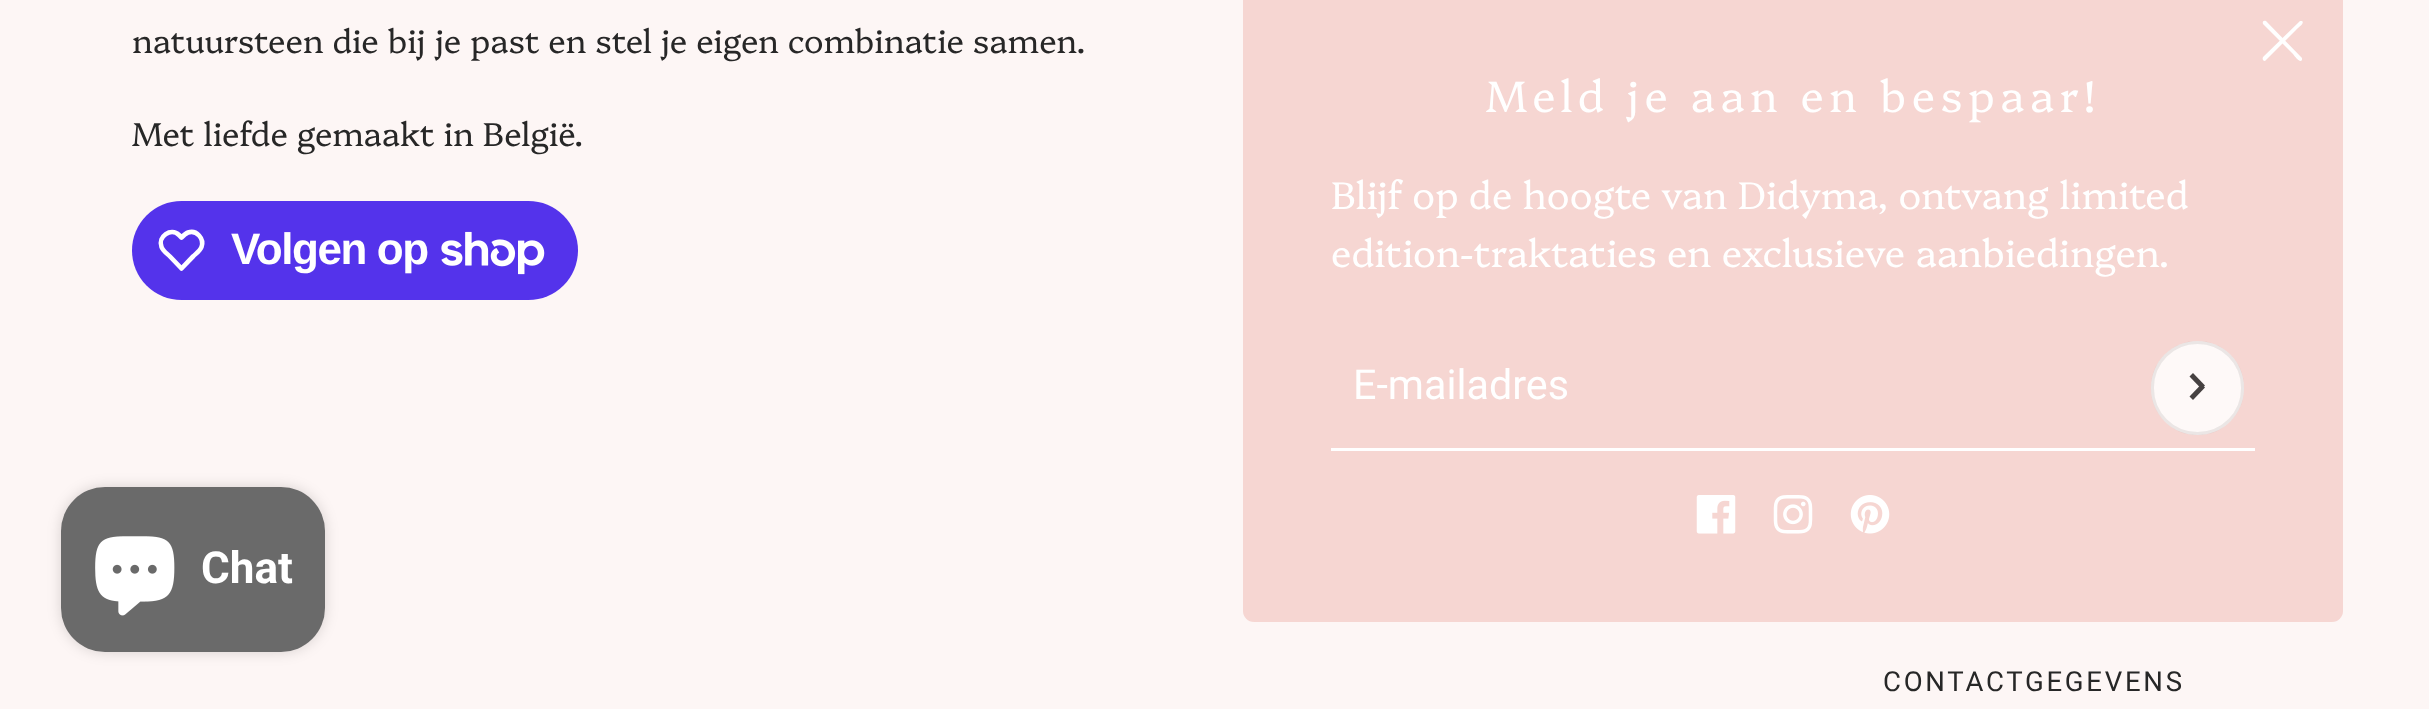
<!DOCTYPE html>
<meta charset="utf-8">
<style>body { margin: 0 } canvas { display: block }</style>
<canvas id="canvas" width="2429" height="709"></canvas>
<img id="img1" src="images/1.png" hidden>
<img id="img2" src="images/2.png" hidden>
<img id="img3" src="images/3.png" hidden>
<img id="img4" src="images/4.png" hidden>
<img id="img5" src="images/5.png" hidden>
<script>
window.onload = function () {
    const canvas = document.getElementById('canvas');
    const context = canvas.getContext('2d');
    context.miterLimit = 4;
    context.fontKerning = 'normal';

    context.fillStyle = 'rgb(253, 246, 245)';
    context.fillRect(0, 0, 2429, 709);
    context.fillStyle = 'rgb(84, 51, 235)';
    context.beginPath();
    context.roundRect(132, 201, 446, 99, 49.5);
    context.fill();
    context.beginPath();
    context.moveTo(179, 235);
    context.lineTo(181.5, 237.5);
    context.bezierCurveTo(183.5, 235.5, 185.5, 233.5, 188, 232.5);
    context.bezierCurveTo(196.5, 229.5, 204.5, 238.5, 201.5, 247);
    context.bezierCurveTo(200, 251, 196, 253.5, 193, 256.5);
    context.lineTo(181.5, 268.5);
    context.lineTo(170, 256.5);
    context.bezierCurveTo(167, 253.5, 163, 251, 161.5, 247);
    context.bezierCurveTo(157.5, 236.5, 171, 227, 179, 235);
    context.closePath();
    context.strokeStyle = 'rgb(255, 255, 255)';
    context.lineWidth = 4.6;
    context.lineJoin = 'round';
    context.stroke();
    context.drawImage(document.getElementById('img1'), 441, 231, 104, 44);
    context.fillStyle = 'rgba(245, 208, 203, 0.85)';
    context.beginPath();
    context.roundRect(1243, -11, 1100, 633, 11);
    context.fill();
    context.fillStyle = 'rgb(255, 255, 255)';
    context.beginPath();
    context.moveTo(2266, 21);
    context.lineTo(2302, 58);
    context.lineTo(2302, 60);
    context.bezierCurveTo(2300, 63, 2296, 58, 2293, 54);
    context.lineTo(2263, 24);
    context.bezierCurveTo(2262, 21, 2264, 20, 2266, 21);
    context.closePath();
    context.fill();
    context.beginPath();
    context.moveTo(2263, 57);
    context.lineTo(2300, 21);
    context.lineTo(2302, 21);
    context.bezierCurveTo(2305, 23, 2299, 27, 2296, 30);
    context.lineTo(2265, 61);
    context.bezierCurveTo(2263, 61, 2262, 59, 2263, 57);
    context.closePath();
    context.fill();
    context.fillRect(1331, 448, 924, 3);
    context.fillStyle = 'rgba(255, 255, 255, 0.85)';
    context.beginPath();
    context.roundRect(2151, 341, 93, 94, 46.5);
    context.fill();
    context.beginPath();
    context.roundRect(2152.5, 342.5, 90, 91, 45);
    context.strokeStyle = 'rgba(39, 39, 39, 0.09)';
    context.lineWidth = 3;
    context.lineJoin = 'miter';
    context.stroke();
    context.fillStyle = 'rgb(70, 65, 65)';
    context.beginPath();
    context.moveTo(2189.5, 396.5);
    context.lineTo(2201.5, 384);
    context.lineTo(2205, 387.5);
    context.lineTo(2193, 400);
    context.closePath();
    context.fill();
    context.beginPath();
    context.moveTo(2193, 373);
    context.lineTo(2205, 385.5);
    context.lineTo(2201.5, 389);
    context.lineTo(2189.5, 376.5);
    context.closePath();
    context.fill();
    context.drawImage(document.getElementById('img2'), 1696, 495, 40, 39);
    context.drawImage(document.getElementById('img3'), 1773, 495, 40, 39);
    context.drawImage(document.getElementById('img4'), 1850, 495, 40, 39);
    context.fillStyle = 'rgba(0, 0, 0, 0.15)';
    context.filter = 'blur(7px)';
    context.beginPath();
    context.roundRect(61, 487, 264, 165, 44);
    context.fill();
    context.filter = 'none';
    context.fillStyle = 'rgb(106, 106, 106)';
    context.beginPath();
    context.roundRect(61, 487, 264, 165, 44);
    context.fill();
    context.drawImage(document.getElementById('img5'), 95, 536, 80, 80);
    context.font = '300 33px Platypi';
    context.fillStyle = 'rgb(39, 39, 39)';
    context.fillText('natuursteen die bij je past en stel je eigen combinatie samen.', 132, 53);
    context.fillText('Met liefde gemaakt in België.', 132, 146);
    context.letterSpacing = '-1.4px';
    context.font = 'bold 44px Liberation Sans';
    context.fillStyle = 'rgb(255, 255, 255)';
    context.fillText('Volgen op', 231, 264);
    context.letterSpacing = '2.75px';
    context.font = '27.5px Roboto';
    context.fillStyle = 'rgb(39, 39, 39)';
    context.fillText('CONTACTGEGEVENS', 1883, 691);
    context.letterSpacing = '5.5px';
    context.font = '300 44px Platypi';
    context.fillStyle = 'rgb(255, 255, 255)';
    context.fillText('Meld je aan en bespaar!', 1486, 112);
    context.letterSpacing = '0px';
    context.font = '300 38.5px Platypi';
    context.fillText('Blijf op de hoogte van Didyma, ontvang limited', 1331, 209);
    context.fillText('edition-traktaties en exclusieve aanbiedingen.', 1331, 267);
    context.font = '41.25px Roboto';
    context.fillText('E-mailadres', 1353, 399);
    context.font = 'bold 44px Roboto';
    context.fillText('Chat', 201, 583);
};
</script>
